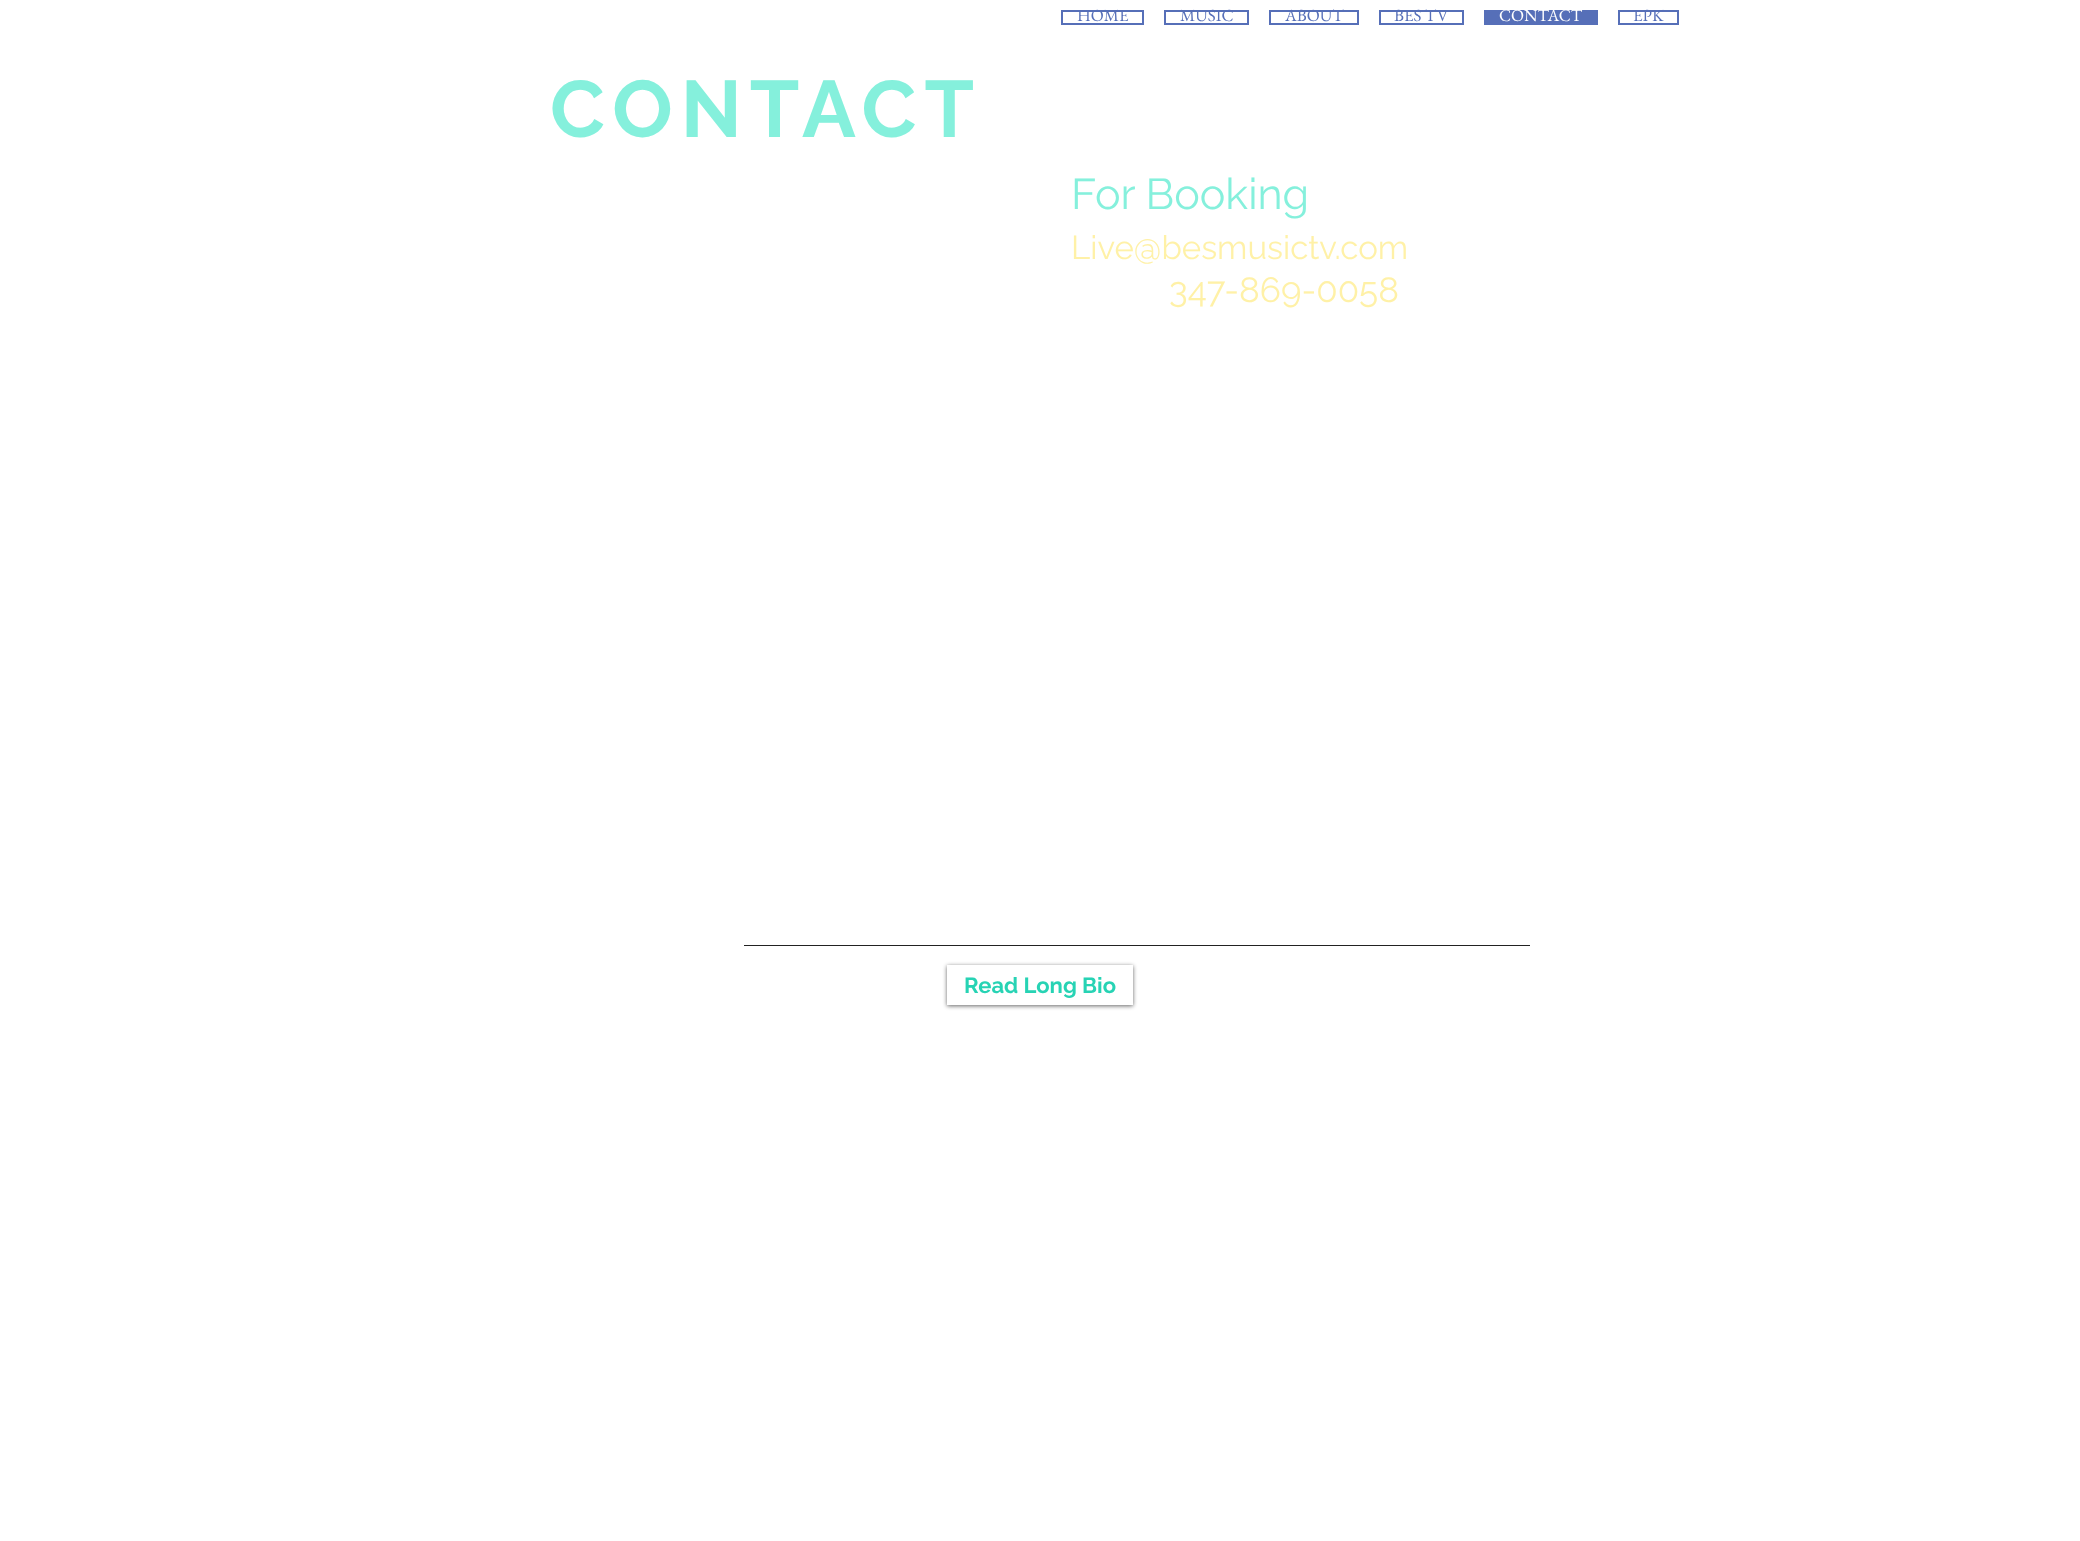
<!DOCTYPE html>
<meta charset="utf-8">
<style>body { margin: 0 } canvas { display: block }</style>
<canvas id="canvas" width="2080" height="1541"></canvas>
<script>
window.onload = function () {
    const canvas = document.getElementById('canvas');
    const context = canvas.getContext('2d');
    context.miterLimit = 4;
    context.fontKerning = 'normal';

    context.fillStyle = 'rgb(255, 255, 255)';
    context.fillRect(0, 0, 2080, 1541);
    context.strokeStyle = 'rgb(86, 111, 184)';
    context.lineWidth = 2;
    context.strokeRect(1062, 11, 81, 13);
    context.strokeRect(1165, 11, 83, 13);
    context.strokeRect(1270, 11, 88, 13);
    context.strokeRect(1380, 11, 83, 13);
    context.fillStyle = 'rgb(86, 111, 184)';
    context.fillRect(1484, 10, 114, 15);
    context.strokeRect(1619, 11, 59, 13);
    context.fillStyle = 'rgb(34, 34, 34)';
    context.fillRect(744, 945, 786, 1);
    context.save();
    context.beginPath();
    context.moveTo(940, 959);
    context.lineTo(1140, 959);
    context.lineTo(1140, 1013);
    context.lineTo(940, 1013);
    context.closePath();
    context.moveTo(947, 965);
    context.lineTo(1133, 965);
    context.lineTo(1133, 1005);
    context.lineTo(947, 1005);
    context.closePath();
    context.clip('evenodd');
    context.fillStyle = 'rgba(0, 0, 0, 0.6)';
    context.filter = 'blur(2px)';
    context.beginPath();
    context.rect(947, 966, 186, 40);
    context.fill();
    context.filter = 'none';
    context.restore();
    context.font = '17px EB Garamond';
    context.fillStyle = 'rgb(86, 111, 184)';
    context.fillText('HOME', 1077, 21);
    context.fillText('MUSIC', 1180, 21);
    context.fillText('ABOUT', 1285, 21);
    context.fillText('BES TV', 1394, 21);
    context.fillStyle = 'rgb(255, 255, 255)';
    context.fillText('CONTACT', 1499, 21);
    context.fillStyle = 'rgb(86, 111, 184)';
    context.fillText('EPK', 1633, 21);
    context.letterSpacing = '8px';
    context.font = 'bold 80px Raleway';
    context.fillStyle = 'rgb(133, 240, 220)';
    context.fillText('CONTACT', 550, 137);
    context.letterSpacing = '0px';
    context.font = '43px Raleway';
    context.fillText('For Booking', 1071, 209);
    context.font = '33px Raleway';
    context.fillStyle = 'rgb(255, 241, 167)';
    context.fillText('Live@besmusictv.com', 1071, 259);
    context.font = '35px Raleway';
    context.fillText('347-869-0058', 1169, 302);
    context.font = 'bold 22px Raleway';
    context.fillStyle = 'rgb(39, 211, 180)';
    context.fillText('Read Long Bio', 964, 993);
};
</script>
